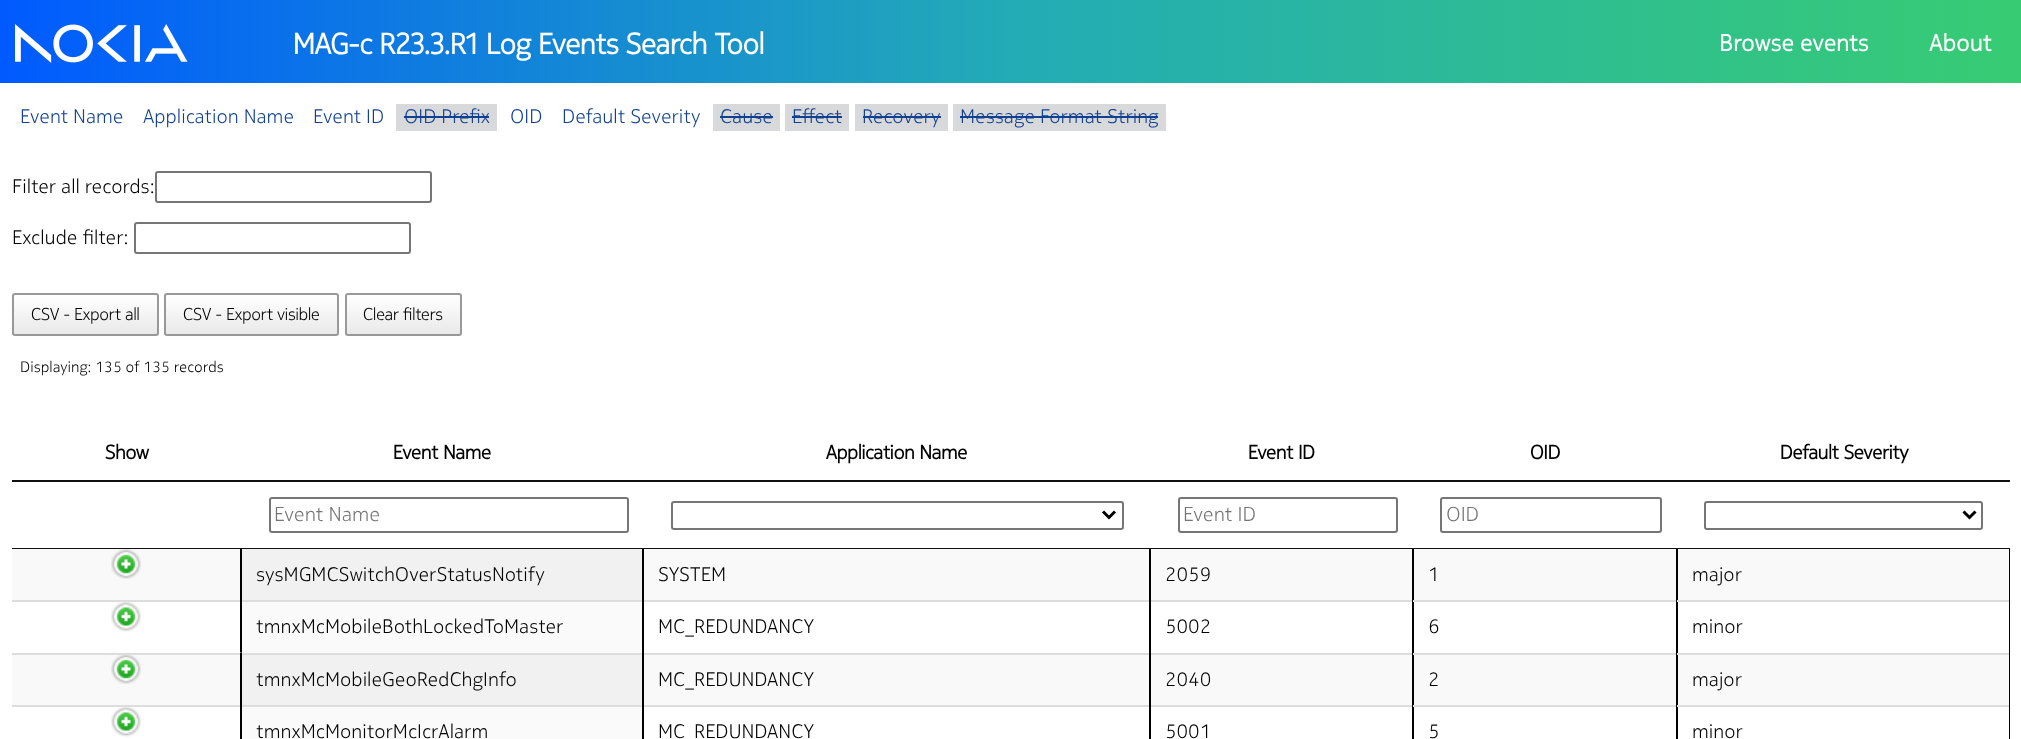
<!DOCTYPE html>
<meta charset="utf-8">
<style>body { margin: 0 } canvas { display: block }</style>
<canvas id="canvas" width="2021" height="739"></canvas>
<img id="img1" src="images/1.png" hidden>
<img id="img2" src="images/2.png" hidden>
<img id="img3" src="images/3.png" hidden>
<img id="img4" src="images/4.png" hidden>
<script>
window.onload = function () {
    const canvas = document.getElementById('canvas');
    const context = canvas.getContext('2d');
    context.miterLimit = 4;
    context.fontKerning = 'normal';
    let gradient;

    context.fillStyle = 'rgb(255, 255, 255)';
    context.fillRect(0, 0, 2021, 739);
    gradient = context.createLinearGradient(0, 41, 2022, 41);
    gradient.addColorStop(0, 'rgb(0, 90, 255)');
    gradient.addColorStop(0.5, 'rgb(35, 171, 182)');
    gradient.addColorStop(1, 'rgb(55, 204, 115)');
    context.fillStyle = gradient;
    context.fillRect(0, 0, 2021, 83);
    context.drawImage(document.getElementById('img1'), 15, 24, 173, 39);
    context.fillStyle = 'rgb(216, 217, 218)';
    context.fillRect(396, 104, 101, 27);
    context.fillStyle = 'rgb(18, 65, 145)';
    context.fillRect(404, 116, 85, 2);
    context.fillStyle = 'rgb(216, 217, 218)';
    context.fillRect(713, 104, 67, 27);
    context.fillStyle = 'rgb(18, 65, 145)';
    context.fillRect(720, 116, 53, 2);
    context.fillStyle = 'rgb(216, 217, 218)';
    context.fillRect(785, 104, 64, 27);
    context.fillStyle = 'rgb(18, 65, 145)';
    context.fillRect(792, 116, 50, 2);
    context.fillStyle = 'rgb(216, 217, 218)';
    context.fillRect(855, 104, 93, 27);
    context.fillStyle = 'rgb(18, 65, 145)';
    context.fillRect(863, 116, 78, 2);
    context.fillStyle = 'rgb(216, 217, 218)';
    context.fillRect(953, 104, 213, 27);
    context.fillStyle = 'rgb(18, 65, 145)';
    context.fillRect(960, 116, 198, 2);
    context.beginPath();
    context.roundRect(156, 172, 275, 30, 2);
    context.strokeStyle = 'rgb(118, 118, 118)';
    context.lineWidth = 2;
    context.stroke();
    context.beginPath();
    context.roundRect(135, 223, 275, 30, 2);
    context.stroke();
    context.save();
    context.beginPath();
    context.roundRect(12, 293, 147, 43, 3);
    context.clip();
    gradient = context.createLinearGradient(86, 294, 86, 335);
    gradient.addColorStop(0, 'rgb(255, 255, 255)');
    gradient.addColorStop(1, 'rgb(233, 233, 233)');
    context.fillStyle = gradient;
    context.fillRect(12, 294, 147, 41);
    context.restore();
    context.beginPath();
    context.roundRect(13, 294, 145, 41, 2);
    context.strokeStyle = 'rgb(153, 153, 153)';
    context.stroke();
    context.save();
    context.beginPath();
    context.roundRect(164, 293, 175, 43, 3);
    context.clip();
    gradient = context.createLinearGradient(251, 294, 251, 335);
    gradient.addColorStop(0, 'rgb(255, 255, 255)');
    gradient.addColorStop(1, 'rgb(233, 233, 233)');
    context.fillStyle = gradient;
    context.fillRect(164, 294, 175, 41);
    context.restore();
    context.beginPath();
    context.roundRect(165, 294, 173, 41, 2);
    context.stroke();
    context.save();
    context.beginPath();
    context.roundRect(345, 293, 117, 43, 3);
    context.clip();
    gradient = context.createLinearGradient(404, 294, 404, 335);
    gradient.addColorStop(0, 'rgb(255, 255, 255)');
    gradient.addColorStop(1, 'rgb(233, 233, 233)');
    context.fillStyle = gradient;
    context.fillRect(345, 294, 117, 41);
    context.restore();
    context.beginPath();
    context.roundRect(346, 294, 115, 41, 2);
    context.stroke();
    context.fillStyle = 'rgb(17, 17, 17)';
    context.fillRect(12, 480, 1998, 2);
    context.beginPath();
    context.roundRect(270, 498, 358, 34, 2);
    context.strokeStyle = 'rgb(118, 118, 118)';
    context.stroke();
    context.beginPath();
    context.roundRect(672, 502, 451, 27, 2);
    context.stroke();
    context.beginPath();
    context.moveTo(1103, 511.5);
    context.lineTo(1109, 517.5);
    context.lineTo(1115, 511.5);
    context.strokeStyle = 'rgb(0, 0, 0)';
    context.lineWidth = 3;
    context.stroke();
    context.beginPath();
    context.roundRect(1179, 498, 218, 34, 2);
    context.strokeStyle = 'rgb(118, 118, 118)';
    context.lineWidth = 2;
    context.stroke();
    context.beginPath();
    context.roundRect(1441, 498, 220, 34, 2);
    context.stroke();
    context.beginPath();
    context.roundRect(1705, 502, 277, 27, 2);
    context.stroke();
    context.beginPath();
    context.moveTo(1963.5, 511.5);
    context.lineTo(1969.5, 517.5);
    context.lineTo(1975.5, 511.5);
    context.strokeStyle = 'rgb(0, 0, 0)';
    context.lineWidth = 3;
    context.stroke();
    context.fillRect(12, 548, 1998, 1);
    context.fillStyle = 'rgb(249, 249, 249)';
    context.fillRect(12, 549, 1997, 51);
    context.drawImage(document.getElementById('img2'), 111, 549, 30, 30);
    context.fillStyle = 'rgb(0, 0, 0)';
    context.fillRect(240, 549, 2, 51);
    context.fillStyle = 'rgb(241, 241, 241)';
    context.fillRect(242, 549, 400, 51);
    context.fillStyle = 'rgb(0, 0, 0)';
    context.fillRect(642, 549, 2, 51);
    context.fillRect(1149, 549, 2, 51);
    context.fillRect(1412, 549, 2, 51);
    context.fillRect(1676, 549, 2, 51);
    context.fillRect(2009, 549, 1, 51);
    context.drawImage(document.getElementById('img3'), 111, 602, 30, 30);
    context.fillStyle = 'rgb(221, 221, 221)';
    context.fillRect(12, 600, 1401, 2);
    context.fillStyle = 'rgb(0, 0, 0)';
    context.fillRect(240, 600, 2, 53);
    context.fillStyle = 'rgb(250, 250, 250)';
    context.fillRect(242, 602, 400, 51);
    context.fillStyle = 'rgb(0, 0, 0)';
    context.fillRect(642, 600, 2, 53);
    context.fillRect(1149, 600, 2, 53);
    context.fillRect(1412, 600, 2, 53);
    context.fillStyle = 'rgb(221, 221, 221)';
    context.fillRect(1413, 600, 264, 2);
    context.fillStyle = 'rgb(0, 0, 0)';
    context.fillRect(1676, 600, 2, 53);
    context.fillStyle = 'rgb(221, 221, 221)';
    context.fillRect(1677, 600, 333, 2);
    context.fillStyle = 'rgb(0, 0, 0)';
    context.fillRect(2009, 600, 1, 53);
    context.fillStyle = 'rgb(249, 249, 249)';
    context.fillRect(12, 655, 1997, 50);
    context.drawImage(document.getElementById('img4'), 111, 652, 131, 32);
    context.fillStyle = 'rgb(221, 221, 221)';
    context.fillRect(12, 653, 1401, 2);
    context.fillStyle = 'rgb(0, 0, 0)';
    context.fillRect(240, 653, 2, 52);
    context.fillStyle = 'rgb(241, 241, 241)';
    context.fillRect(242, 655, 400, 50);
    context.fillStyle = 'rgb(0, 0, 0)';
    context.fillRect(642, 653, 2, 52);
    context.fillRect(1149, 653, 2, 52);
    context.fillRect(1412, 653, 2, 52);
    context.fillStyle = 'rgb(221, 221, 221)';
    context.fillRect(1413, 653, 264, 2);
    context.fillStyle = 'rgb(0, 0, 0)';
    context.fillRect(1676, 653, 2, 52);
    context.fillStyle = 'rgb(221, 221, 221)';
    context.fillRect(1677, 653, 333, 2);
    context.fillStyle = 'rgb(0, 0, 0)';
    context.fillRect(2009, 653, 1, 52);
    context.drawImage(document.getElementById('img3'), 111, 707, 30, 30);
    context.fillStyle = 'rgb(221, 221, 221)';
    context.fillRect(12, 705, 1401, 2);
    context.fillStyle = 'rgb(0, 0, 0)';
    context.fillRect(240, 705, 2, 34);
    context.fillStyle = 'rgb(250, 250, 250)';
    context.fillRect(242, 707, 400, 32);
    context.fillStyle = 'rgb(0, 0, 0)';
    context.fillRect(642, 705, 2, 34);
    context.fillRect(1149, 705, 2, 34);
    context.fillRect(1412, 705, 2, 34);
    context.fillStyle = 'rgb(221, 221, 221)';
    context.fillRect(1413, 705, 264, 2);
    context.fillStyle = 'rgb(0, 0, 0)';
    context.fillRect(1676, 705, 2, 34);
    context.fillStyle = 'rgb(221, 221, 221)';
    context.fillRect(1677, 705, 333, 2);
    context.fillStyle = 'rgb(0, 0, 0)';
    context.fillRect(2009, 705, 1, 34);
    context.font = 'bold 29.2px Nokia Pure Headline';
    context.fillStyle = 'rgb(255, 255, 255)';
    context.fillText('MAG-c R23.3.R1 Log Events Search Tool', 293, 54);
    context.font = 'bold 23.25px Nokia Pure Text';
    context.fillText('Browse events', 1719, 51);
    context.fillText('About', 1929, 51);
    context.font = '300 19.5px Nokia Pure Text';
    context.fillStyle = 'rgb(18, 65, 145)';
    context.fillText('Event Name', 20, 123);
    context.fillText('Application Name', 143, 123);
    context.fillText('Event ID', 313, 123);
    context.fillText('OID Prefix', 404, 123);
    context.fillText('OID', 510, 123);
    context.fillText('Default Severity', 562, 123);
    context.fillText('Cause', 720, 123);
    context.fillText('Effect', 792, 123);
    context.fillText('Recovery', 862, 123);
    context.fillText('Message Format String', 960, 123);
    context.fillStyle = 'rgb(0, 0, 0)';
    context.fillText('Filter all records:', 12, 193);
    context.fillText('Exclude filter:', 12, 244);
    context.font = '300 17px Nokia Pure Headline';
    context.fillText('CSV - Export all', 31, 320);
    context.fillText('CSV - Export visible', 183, 320);
    context.fillText('Clear filters', 363, 320);
    context.font = '300 15px Nokia Pure Text';
    context.fillText('Displaying: 135 of 135 records', 20, 372);
    context.font = 'bold 19.5px Nokia Pure Headline';
    context.fillText('Show', 105, 459);
    context.fillText('Event Name', 393, 459);
    context.fillText('Application Name', 826, 459);
    context.fillText('Event ID', 1248, 459);
    context.fillText('OID', 1530, 459);
    context.fillText('Default Severity', 1780, 459);
    context.font = '300 20px Nokia Pure Text';
    context.fillStyle = 'rgb(117, 117, 117)';
    context.fillText('Event Name', 274, 521);
    context.fillText('Event ID', 1183, 521);
    context.fillText('OID', 1446, 521);
    context.font = '300 19.5px Nokia Pure Text';
    context.fillStyle = 'rgb(0, 0, 0)';
    context.fillText('sysMGMCSwitchOverStatusNotify', 256, 581);
    context.fillText('SYSTEM', 658, 581);
    context.fillText('2059', 1165, 581);
    context.fillText('1', 1428, 581);
    context.fillText('major', 1692, 581);
    context.fillText('tmnxMcMobileBothLockedToMaster', 256, 633);
    context.fillText('MC_REDUNDANCY', 658, 633);
    context.fillText('5002', 1165, 633);
    context.fillText('6', 1428, 633);
    context.fillText('minor', 1692, 633);
    context.fillText('tmnxMcMobileGeoRedChgInfo', 256, 686);
    context.fillText('MC_REDUNDANCY', 658, 686);
    context.fillText('2040', 1165, 686);
    context.fillText('2', 1428, 686);
    context.fillText('major', 1692, 686);
    context.fillText('tmnxMcMonitorMcIcrAlarm', 256, 738);
    context.fillText('MC_REDUNDANCY', 658, 738);
    context.fillText('5001', 1165, 738);
    context.fillText('5', 1428, 738);
    context.fillText('minor', 1692, 738);
};
</script>
